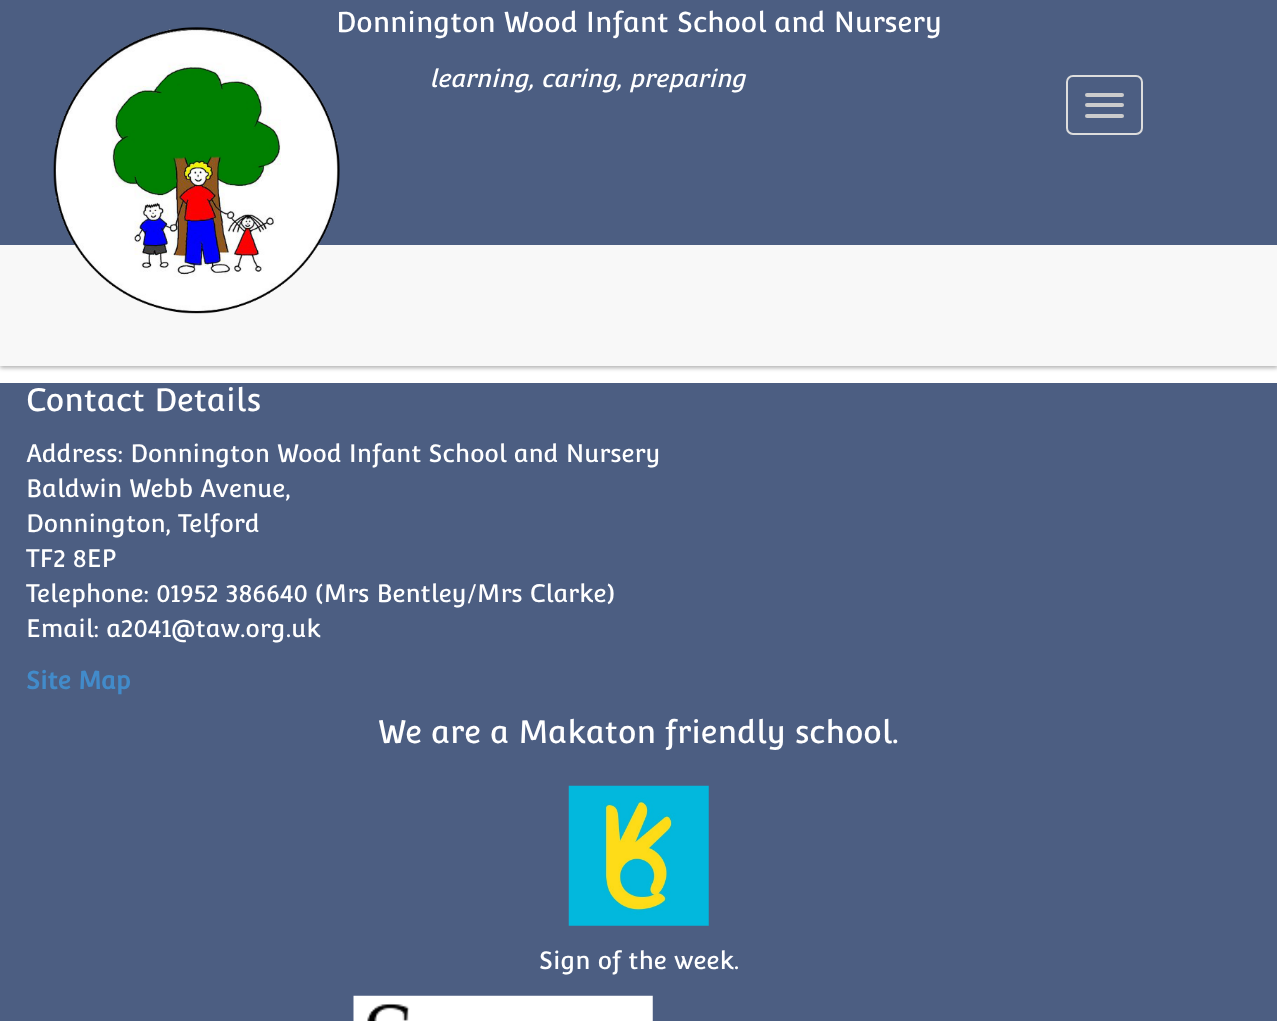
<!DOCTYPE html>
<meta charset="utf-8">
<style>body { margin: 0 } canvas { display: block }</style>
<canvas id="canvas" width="1277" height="1021"></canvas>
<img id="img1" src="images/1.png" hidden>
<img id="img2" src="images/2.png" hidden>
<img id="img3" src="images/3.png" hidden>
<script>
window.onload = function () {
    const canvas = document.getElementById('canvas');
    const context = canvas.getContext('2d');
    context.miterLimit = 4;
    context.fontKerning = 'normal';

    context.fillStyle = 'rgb(255, 255, 255)';
    context.fillRect(0, 0, 1277, 1021);
    context.fillStyle = 'rgba(0, 0, 0, 0.3)';
    context.filter = 'blur(2px)';
    context.beginPath();
    context.rect(0, -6, 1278, 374);
    context.fill();
    context.filter = 'none';
    context.fillStyle = 'rgb(76, 94, 130)';
    context.fillRect(0, 0, 1277, 245);
    context.fillStyle = 'rgb(248, 248, 248)';
    context.fillRect(0, 245, 1277, 121);
    context.drawImage(document.getElementById('img1'), 53, 27, 287, 287);
    context.beginPath();
    context.roundRect(1067, 76, 75, 58, 6);
    context.strokeStyle = 'rgb(221, 221, 221)';
    context.lineWidth = 2;
    context.stroke();
    context.fillStyle = 'rgb(204, 204, 204)';
    context.beginPath();
    context.roundRect(1085, 93, 39, 4, 2);
    context.fill();
    context.beginPath();
    context.roundRect(1085, 103, 39, 4, 2);
    context.fill();
    context.beginPath();
    context.roundRect(1085, 114, 39, 4, 2);
    context.fill();
    context.fillStyle = 'rgb(76, 94, 130)';
    context.fillRect(0, 383, 1277, 638);
    context.drawImage(document.getElementById('img2'), 568, 785, 141, 141);
    context.drawImage(document.getElementById('img3'), 353, 995, 300, 26);
    context.font = '28px Convergence';
    context.fillStyle = 'rgb(255, 255, 255)';
    context.fillText('Donnington Wood Infant School and Nursery', 336, 32);
    context.font = 'italic 24.5px Convergence';
    context.fillText('learning, caring, preparing', 429, 87);
    context.font = '31.5px Convergence';
    context.fillText('Contact Details', 26, 411);
    context.font = '24.5px Convergence';
    context.fillText('Address: Donnington Wood Infant School and Nursery', 26, 462);
    context.fillText('Baldwin Webb Avenue,', 26, 497);
    context.fillText('Donnington, Telford', 26, 532);
    context.fillText('TF2 8EP', 26, 567);
    context.fillText('Telephone: 01952 386640 (Mrs Bentley/Mrs Clarke)', 26, 602);
    context.fillText('Email: a2041@taw.org.uk', 26, 637);
    context.font = 'bold 24.5px Convergence';
    context.fillStyle = 'rgb(66, 139, 202)';
    context.fillText('Site Map', 26, 689);
    context.font = '31.5px Convergence';
    context.fillStyle = 'rgb(255, 255, 255)';
    context.fillText('We are a Makaton friendly school.', 378, 743);
    context.font = '24.5px Convergence';
    context.fillText('Sign of the week.', 539, 969);
};
</script>
